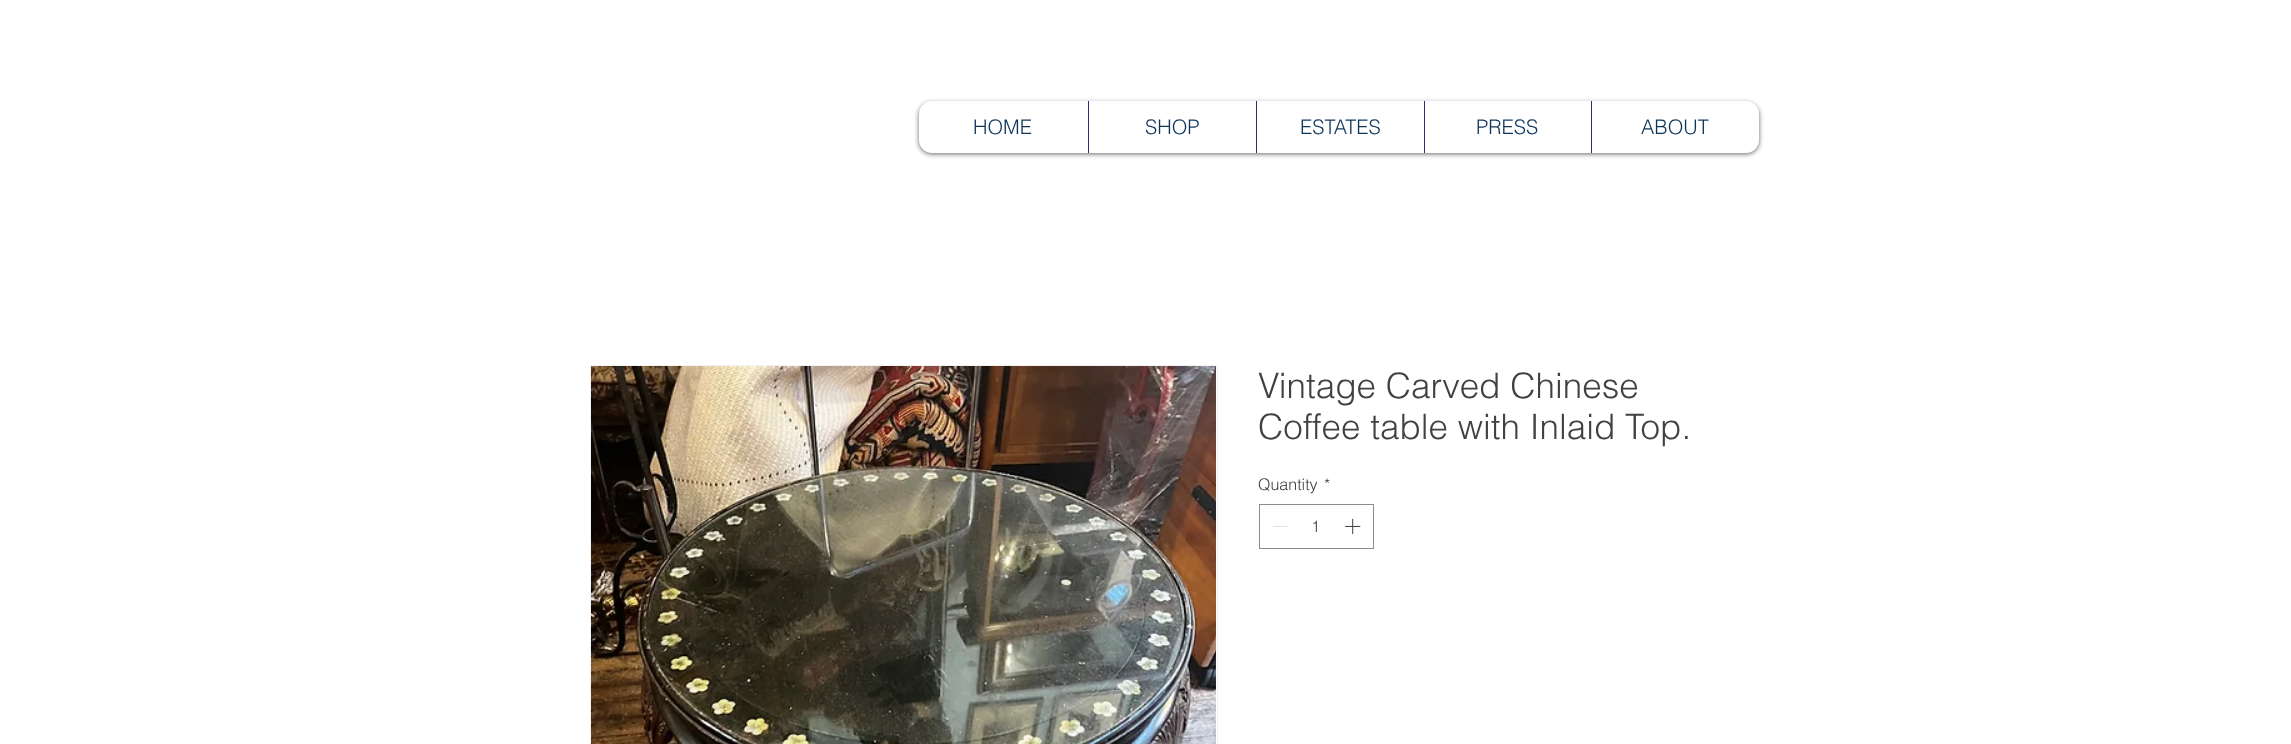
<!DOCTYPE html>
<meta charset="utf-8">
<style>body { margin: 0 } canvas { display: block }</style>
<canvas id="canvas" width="2291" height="744"></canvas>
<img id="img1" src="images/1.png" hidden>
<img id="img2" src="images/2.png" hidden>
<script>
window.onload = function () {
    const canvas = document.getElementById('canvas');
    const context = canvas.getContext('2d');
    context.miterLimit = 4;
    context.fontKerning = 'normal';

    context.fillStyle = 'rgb(255, 255, 255)';
    context.fillRect(0, 0, 2291, 744);
    context.fillStyle = 'rgba(0, 0, 0, 0.6)';
    context.filter = 'blur(2.5px)';
    context.beginPath();
    context.roundRect(919, 103, 840, 51, 13);
    context.fill();
    context.filter = 'none';
    context.fillStyle = 'rgb(255, 255, 255)';
    context.beginPath();
    context.roundRect(919, 101, 840, 52, 13);
    context.fill();
    context.fillStyle = 'rgb(45, 47, 122)';
    context.fillRect(1088, 101, 1, 52);
    context.fillRect(1256, 101, 1, 52);
    context.fillRect(1424, 101, 1, 52);
    context.fillRect(1591, 101, 1, 52);
    context.strokeStyle = 'rgb(242, 242, 242)';
    context.strokeRect(590.5, 365.5, 627, 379);
    context.drawImage(document.getElementById('img1'), 591, 366, 625, 378);
    context.strokeStyle = 'rgb(141, 141, 141)';
    context.strokeRect(1259.5, 504.5, 114, 44);
    context.fillStyle = 'rgb(227, 227, 227)';
    context.fillRect(1273, 526, 15, 1);
    context.drawImage(document.getElementById('img2'), 1345, 518, 16, 17);
    context.font = '300 20px helvetica';
    context.fillStyle = 'rgb(14, 52, 90)';
    context.fillText('HOME', 973, 134);
    context.fillText('SHOP', 1145, 134);
    context.fillText('ESTATES', 1300, 134);
    context.fillText('PRESS', 1476, 134);
    context.fillText('ABOUT', 1641, 134);
    context.font = '300 35px helvetica';
    context.fillStyle = 'rgb(65, 65, 65)';
    context.fillText('Vintage Carved Chinese', 1258, 398);
    context.fillText('Coffee table with Inlaid Top.', 1258, 439);
    context.font = '300 16px helvetica';
    context.fillText('Quantity', 1258, 490);
    context.fillText('*', 1324, 490);
    context.fillText('1', 1311, 532);
};
</script>
